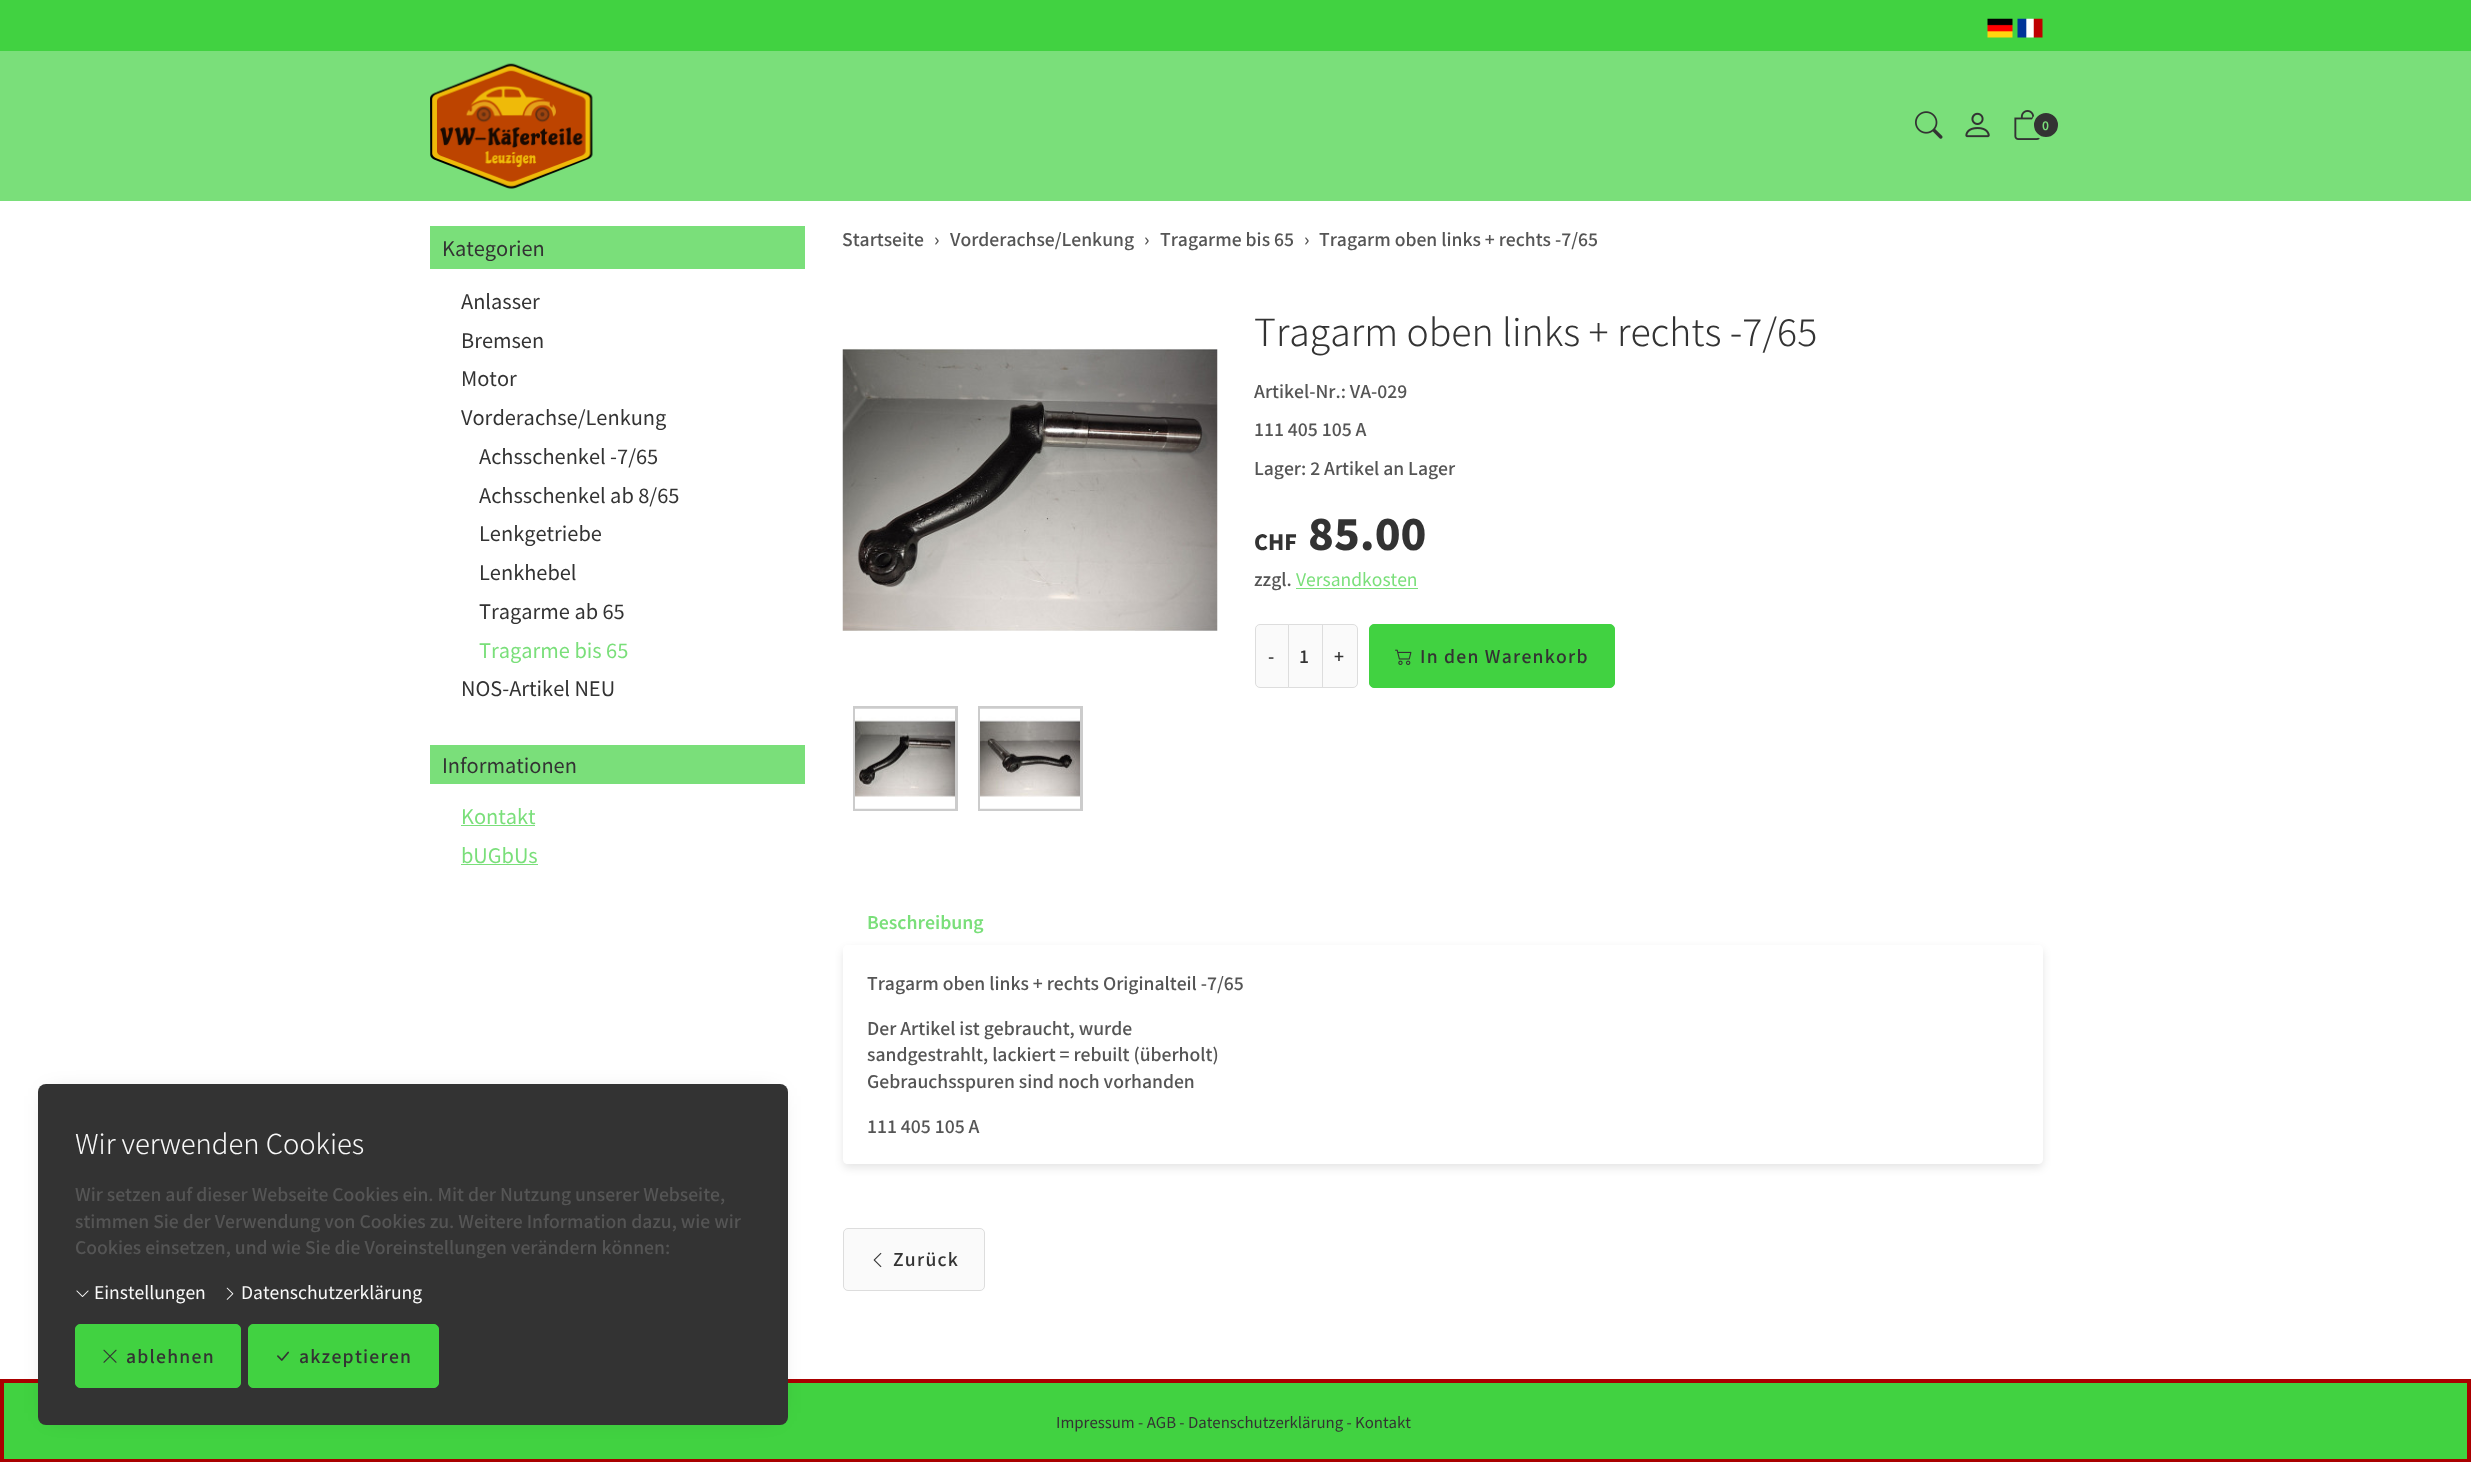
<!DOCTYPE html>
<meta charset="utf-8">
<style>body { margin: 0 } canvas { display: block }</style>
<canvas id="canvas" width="2471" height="1462"></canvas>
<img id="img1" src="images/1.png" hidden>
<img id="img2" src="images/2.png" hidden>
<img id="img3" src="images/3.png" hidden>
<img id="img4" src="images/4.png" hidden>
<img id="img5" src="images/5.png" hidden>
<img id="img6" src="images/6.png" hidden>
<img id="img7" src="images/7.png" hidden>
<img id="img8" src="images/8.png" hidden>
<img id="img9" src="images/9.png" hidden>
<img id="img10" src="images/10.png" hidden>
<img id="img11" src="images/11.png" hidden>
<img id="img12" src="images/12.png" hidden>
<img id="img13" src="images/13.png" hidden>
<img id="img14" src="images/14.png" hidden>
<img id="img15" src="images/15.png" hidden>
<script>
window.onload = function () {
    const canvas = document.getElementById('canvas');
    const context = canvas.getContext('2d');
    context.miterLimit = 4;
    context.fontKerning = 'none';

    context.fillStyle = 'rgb(255, 255, 255)';
    context.fillRect(0, 0, 2471, 1462);
    context.fillStyle = 'rgb(122, 223, 122)';
    context.fillRect(0, 51, 2471, 150);
    context.fillStyle = 'rgb(65, 210, 65)';
    context.fillRect(0, 0, 2471, 51);
    context.drawImage(document.getElementById('img1'), 1987, 18, 26, 20);
    context.drawImage(document.getElementById('img2'), 2017, 18, 26, 20);
    context.drawImage(document.getElementById('img3'), 430, 63, 163, 126);
    context.drawImage(document.getElementById('img4'), 1915, 111, 28, 28);
    context.drawImage(document.getElementById('img5'), 1965, 112, 25, 26);
    context.drawImage(document.getElementById('img6'), 2014, 110, 26, 30);
    context.fillStyle = 'rgb(51, 51, 51)';
    context.beginPath();
    context.arc(2046, 125, 13.5, 0, 2 * Math.PI);
    context.fill();
    context.strokeStyle = 'rgb(122, 223, 122)';
    context.lineWidth = 3;
    context.stroke();
    context.fillStyle = 'rgb(65, 210, 65)';
    context.beginPath();
    context.rect(2, 1381, 2467, 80);
    context.fill();
    context.strokeStyle = 'rgb(170, 0, 0)';
    context.lineWidth = 4;
    context.stroke();
    context.fillStyle = 'rgba(0, 0, 0, 0.2)';
    context.filter = 'blur(12.5px)';
    context.beginPath();
    context.rect(50, 1096, 725, 317);
    context.fill();
    context.filter = 'none';
    context.fillStyle = 'rgb(51, 51, 51)';
    context.beginPath();
    context.roundRect(38, 1084, 750, 341, 8);
    context.fill();
    context.drawImage(document.getElementById('img7'), 76, 1290, 13, 7);
    context.drawImage(document.getElementById('img8'), 226, 1287, 8, 13);
    context.fillStyle = 'rgb(65, 210, 65)';
    context.beginPath();
    context.roundRect(75.5, 1324.5, 165, 63, 4.5);
    context.fill();
    context.strokeStyle = 'rgb(65, 210, 65)';
    context.lineWidth = 1;
    context.stroke();
    context.drawImage(document.getElementById('img9'), 103, 1349, 14, 14);
    context.beginPath();
    context.roundRect(248.5, 1324.5, 190, 63, 4.5);
    context.fill();
    context.stroke();
    context.drawImage(document.getElementById('img10'), 277, 1351, 12, 10);
    context.fillStyle = 'rgb(122, 223, 122)';
    context.fillRect(430, 226, 375, 43);
    context.fillRect(430, 745, 375, 39);
    context.fillRect(461, 825, 74, 1);
    context.fillRect(461, 864, 77, 1);
    context.drawImage(document.getElementById('img11'), 842, 348, 376, 283);
    context.strokeStyle = 'rgb(204, 204, 204)';
    context.lineWidth = 3;
    context.strokeRect(854.5, 707.5, 102, 102);
    context.drawImage(document.getElementById('img12'), 855, 708, 100, 101);
    context.strokeRect(979.5, 707.5, 102, 102);
    context.drawImage(document.getElementById('img13'), 980, 708, 100, 101);
    context.fillRect(1296, 588, 122, 1);
    context.fillStyle = 'rgb(250, 250, 250)';
    context.beginPath();
    context.roundRect(1255.5, 624.5, 33, 63, [4.5, 0, 0, 4.5]);
    context.fill();
    context.strokeStyle = 'rgb(221, 221, 221)';
    context.lineWidth = 1;
    context.stroke();
    context.beginPath();
    context.roundRect(1321.5, 624.5, 36, 63, [0, 4.5, 4.5, 0]);
    context.fill();
    context.stroke();
    context.beginPath();
    context.rect(1288.5, 624.5, 34, 63);
    context.fill();
    context.stroke();
    context.fillStyle = 'rgb(65, 210, 65)';
    context.beginPath();
    context.roundRect(1369.5, 624.5, 245, 63, 4.5);
    context.fill();
    context.strokeStyle = 'rgb(65, 210, 65)';
    context.stroke();
    context.drawImage(document.getElementById('img14'), 1395, 649, 17, 16);
    context.save();
    context.beginPath();
    context.moveTo(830, 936);
    context.lineTo(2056, 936);
    context.lineTo(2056, 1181);
    context.lineTo(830, 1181);
    context.closePath();
    context.moveTo(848, 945);
    context.lineTo(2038, 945);
    context.bezierCurveTo(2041, 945, 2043, 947, 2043, 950);
    context.lineTo(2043, 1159);
    context.bezierCurveTo(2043, 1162, 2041, 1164, 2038, 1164);
    context.lineTo(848, 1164);
    context.bezierCurveTo(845, 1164, 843, 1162, 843, 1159);
    context.lineTo(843, 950);
    context.bezierCurveTo(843, 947, 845, 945, 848, 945);
    context.closePath();
    context.clip('evenodd');
    context.fillStyle = 'rgba(0, 0, 0, 0.1)';
    context.filter = 'blur(4px)';
    context.beginPath();
    context.roundRect(843, 949, 1200, 219, 5);
    context.fill();
    context.filter = 'none';
    context.restore();
    context.fillStyle = 'rgb(250, 250, 250)';
    context.beginPath();
    context.roundRect(843.5, 1228.5, 141, 62, 4.5);
    context.fill();
    context.strokeStyle = 'rgb(221, 221, 221)';
    context.stroke();
    context.drawImage(document.getElementById('img15'), 873, 1252, 9, 16);
    context.font = '600 12px Noto Sans JP';
    context.fillStyle = 'rgb(122, 223, 122)';
    context.fillText('0', 2042, 130);
    context.font = '300 27.5px Noto Sans JP';
    context.fillStyle = 'rgb(249, 249, 249)';
    context.fillText('Wir verwenden Cookies', 75, 1154);
    context.font = '500 17.5px Noto Sans JP';
    context.fillStyle = 'rgb(85, 85, 85)';
    context.fillText('Wir setzen auf dieser Webseite Cookies ein. Mit der Nutzung unserer Webseite,', 75, 1201);
    context.fillText('stimmen Sie der Verwendung von Cookies zu. Weitere Information dazu, wie wir', 75, 1228);
    context.fillText('Cookies einsetzen, und wie Sie die Voreinstellungen verändern können:', 75, 1254);
    context.font = '17.5px Noto Sans JP';
    context.fillStyle = 'rgb(249, 249, 249)';
    context.fillText('Einstellungen', 94, 1299);
    context.fillText('Datenschutzerklärung', 241, 1299);
    context.letterSpacing = '1.25px';
    context.font = '500 17.5px Noto Sans JP';
    context.fillStyle = 'rgb(51, 51, 51)';
    context.fillText('ablehnen', 126, 1363);
    context.fillText('akzeptieren', 299, 1363);
    context.letterSpacing = '0px';
    context.font = '20px Noto Sans JP';
    context.fillText('Kategorien', 442, 256);
    context.fillText('Anlasser', 461, 309);
    context.fillText('Bremsen', 461, 348);
    context.fillText('Motor', 461, 386);
    context.fillText('Vorderachse/Lenkung', 461, 425);
    context.fillText('Achsschenkel -7/65', 479, 464);
    context.fillText('Achsschenkel ab 8/65', 479, 503);
    context.fillText('Lenkgetriebe', 479, 541);
    context.fillText('Lenkhebel', 479, 580);
    context.fillText('Tragarme ab 65', 479, 619);
    context.fillStyle = 'rgb(122, 223, 122)';
    context.fillText('Tragarme bis 65', 479, 658);
    context.fillStyle = 'rgb(51, 51, 51)';
    context.fillText('NOS-Artikel NEU', 461, 696);
    context.fillText('Informationen', 442, 773);
    context.fillStyle = 'rgb(122, 223, 122)';
    context.fillText('Kontakt', 461, 824);
    context.fillText('bUGbUs', 461, 863);
    context.font = '500 17.5px Noto Sans JP';
    context.fillStyle = 'rgb(85, 85, 85)';
    context.fillText('Startseite', 842, 246);
    context.fillText('›', 934, 246);
    context.fillText('Vorderachse/Lenkung', 950, 246);
    context.fillText('›', 1144, 246);
    context.fillText('Tragarme bis 65', 1160, 246);
    context.fillText('›', 1304, 246);
    context.fillText('Tragarm oben links + rechts -7/65', 1319, 246);
    context.font = '300 37.5px Noto Sans JP';
    context.fillStyle = 'rgb(51, 51, 51)';
    context.fillText('Tragarm oben links + rechts -7/65', 1254, 346);
    context.font = '500 17.5px Noto Sans JP';
    context.fillStyle = 'rgb(85, 85, 85)';
    context.fillText('Artikel-Nr.: VA-029', 1254, 398);
    context.fillText('111 405 105 A', 1254, 436);
    context.fillText('Lager: 2 Artikel an Lager', 1254, 475);
    context.font = '900 21px Noto Sans JP';
    context.fillStyle = 'rgb(51, 51, 51)';
    context.fillText('CHF', 1254, 550);
    context.font = '900 42.5px Noto Sans JP';
    context.fillText('85.00', 1308, 550);
    context.font = '500 17.5px Noto Sans JP';
    context.fillStyle = 'rgb(85, 85, 85)';
    context.fillText('zzgl.', 1254, 586);
    context.font = '17.5px Noto Sans JP';
    context.fillStyle = 'rgb(122, 223, 122)';
    context.fillText('Versandkosten', 1296, 586);
    context.font = '500 17.5px Noto Sans JP';
    context.fillStyle = 'rgb(51, 51, 51)';
    context.fillText('-', 1268, 663);
    context.fillText('1', 1299, 663);
    context.fillText('+', 1334, 663);
    context.letterSpacing = '1.25px';
    context.fillText('In den Warenkorb', 1420, 663);
    context.letterSpacing = '0px';
    context.font = '600 17.5px Noto Sans JP';
    context.fillStyle = 'rgb(122, 223, 122)';
    context.fillText('Beschreibung', 867, 929);
    context.font = '500 17.5px Noto Sans JP';
    context.fillStyle = 'rgb(85, 85, 85)';
    context.fillText('Tragarm oben links + rechts Originalteil -7/65', 867, 990);
    context.fillText('Der Artikel ist gebraucht, wurde', 867, 1035);
    context.fillText('sandgestrahlt, lackiert = rebuilt (überholt)', 867, 1061);
    context.fillText('Gebrauchsspuren sind noch vorhanden', 867, 1088);
    context.fillText('111 405 105 A', 867, 1133);
    context.letterSpacing = '1.25px';
    context.fillStyle = 'rgb(51, 51, 51)';
    context.fillText('Zurück', 893, 1266);
    context.letterSpacing = '0px';
    context.font = '15px Noto Sans JP';
    context.fillText('Impressum - AGB - Datenschutzerklärung - Kontakt', 1056, 1428);
};
</script>
